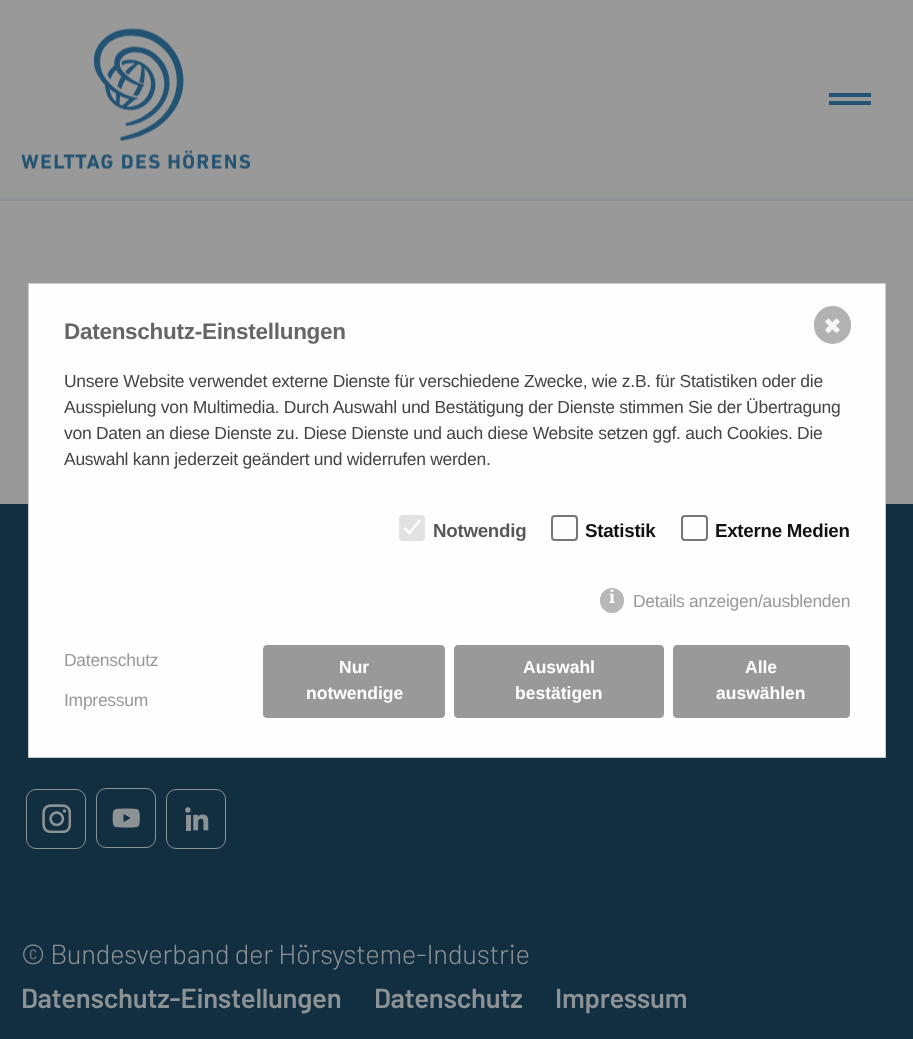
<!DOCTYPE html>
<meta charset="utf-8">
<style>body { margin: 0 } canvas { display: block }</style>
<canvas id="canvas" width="913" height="1039"></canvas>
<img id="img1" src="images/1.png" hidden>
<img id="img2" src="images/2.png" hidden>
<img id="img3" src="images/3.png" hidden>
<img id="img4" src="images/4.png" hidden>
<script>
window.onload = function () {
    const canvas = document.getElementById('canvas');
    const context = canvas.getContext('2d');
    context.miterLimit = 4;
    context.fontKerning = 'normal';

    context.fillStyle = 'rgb(153, 153, 153)';
    context.fillRect(0, 0, 913, 1039);
    context.fillStyle = 'rgb(141, 146, 149)';
    context.fillRect(0, 198, 913, 3);
    context.drawImage(document.getElementById('img1'), 21, 28, 230, 141);
    context.fillStyle = 'rgb(34, 83, 115)';
    context.fillRect(829, 93, 42, 4);
    context.fillRect(829, 101, 42, 4);
    context.fillStyle = 'rgb(18, 47, 65)';
    context.fillRect(0, 504, 913, 535);
    context.fillStyle = 'rgb(254, 254, 254)';
    context.beginPath();
    context.rect(28.5, 283.5, 857, 474);
    context.fill();
    context.strokeStyle = 'rgb(203, 203, 203)';
    context.stroke();
    context.fillStyle = 'rgb(178, 178, 178)';
    context.beginPath();
    context.roundRect(815.5, 307.5, 34, 35, 17);
    context.fill();
    context.strokeStyle = 'rgb(178, 178, 178)';
    context.lineWidth = 3;
    context.stroke();
    context.fillStyle = 'rgb(226, 226, 226)';
    context.beginPath();
    context.roundRect(399, 515, 26, 26, 4);
    context.fill();
    context.beginPath();
    context.moveTo(404.5, 528);
    context.lineTo(409.5, 533);
    context.lineTo(420, 520);
    context.strokeStyle = 'rgb(255, 255, 255)';
    context.lineWidth = 2.6;
    context.stroke();
    context.beginPath();
    context.roundRect(552, 516, 25, 24, 3);
    context.strokeStyle = 'rgb(118, 118, 118)';
    context.lineWidth = 2;
    context.stroke();
    context.beginPath();
    context.roundRect(682, 516, 25, 24, 3);
    context.stroke();
    context.fillStyle = 'rgb(183, 183, 183)';
    context.beginPath();
    context.roundRect(600, 588, 24, 25, 12);
    context.fill();
    context.fillStyle = 'rgb(153, 153, 153)';
    context.beginPath();
    context.roundRect(263.5, 645.5, 181, 72, 3.5);
    context.fill();
    context.strokeStyle = 'rgb(153, 153, 153)';
    context.lineWidth = 1;
    context.stroke();
    context.beginPath();
    context.roundRect(454.5, 645.5, 209, 72, 3.5);
    context.fill();
    context.stroke();
    context.beginPath();
    context.roundRect(673.5, 645.5, 176, 72, 3.5);
    context.fill();
    context.stroke();
    context.beginPath();
    context.roundRect(26.5, 789.5, 59, 59, 9.5);
    context.strokeStyle = 'rgb(141, 146, 149)';
    context.stroke();
    context.drawImage(document.getElementById('img2'), 42, 804, 29, 29);
    context.beginPath();
    context.roundRect(96.5, 788.5, 59, 59, 9.5);
    context.stroke();
    context.drawImage(document.getElementById('img3'), 112, 808, 28, 20);
    context.beginPath();
    context.roundRect(166.5, 789.5, 59, 59, 9.5);
    context.stroke();
    context.drawImage(document.getElementById('img4'), 185, 807, 24, 24);
    context.font = '22.5px DejaVu Sans';
    context.fillStyle = 'rgb(246, 246, 246)';
    context.fillText('✖', 823, 334);
    context.letterSpacing = '-0.28px';
    context.font = 'bold 22.5px Liberation Sans';
    context.fillStyle = 'rgb(102, 102, 102)';
    context.fillText('Datenschutz-Einstellungen', 64, 339);
    context.font = '17.5px Liberation Sans';
    context.fillStyle = 'rgb(68, 68, 68)';
    context.fillText('Unsere Website verwendet externe Dienste für verschiedene Zwecke, wie z.B. für Statistiken oder die', 64, 387);
    context.fillText('Ausspielung von Multimedia. Durch Auswahl und Bestätigung der Dienste stimmen Sie der Übertragung', 64, 413);
    context.fillText('von Daten an diese Dienste zu. Diese Dienste und auch diese Website setzen ggf. auch Cookies. Die', 64, 439);
    context.fillText('Auswahl kann jederzeit geändert und widerrufen werden.', 64, 465);
    context.font = 'bold 18.75px Liberation Sans';
    context.fillStyle = 'rgb(88, 88, 88)';
    context.fillText('Notwendig', 433, 537);
    context.fillStyle = 'rgb(17, 17, 17)';
    context.fillText('Statistik', 585, 537);
    context.fillText('Externe Medien', 715, 537);
    context.font = 'bold 17.5px Noto Serif';
    context.fillStyle = 'rgb(255, 255, 255)';
    context.fillText('i', 609, 603);
    context.font = '17.5px Liberation Sans';
    context.fillStyle = 'rgb(153, 153, 153)';
    context.fillText('Details anzeigen/ausblenden', 633, 607);
    context.fillText('Datenschutz', 64, 666);
    context.fillText('Impressum', 64, 706);
    context.letterSpacing = '0px';
    context.font = 'bold 17.5px Liberation Sans';
    context.fillStyle = 'rgb(255, 255, 255)';
    context.fillText('Nur', 339, 673);
    context.fillText('notwendige', 306, 699);
    context.fillText('Auswahl', 523, 673);
    context.fillText('bestätigen', 515, 699);
    context.fillText('Alle', 745, 673);
    context.fillText('auswählen', 716, 699);
    context.letterSpacing = '-0.28px';
    context.font = '300 27.5px Barlow';
    context.fillStyle = 'rgb(141, 146, 149)';
    context.fillText('© Bundesverband der Hörsysteme-Industrie', 21, 964);
    context.font = '600 27.5px Barlow';
    context.fillText('Datenschutz-Einstellungen', 21, 1008);
    context.fillText('Datenschutz', 374, 1008);
    context.fillText('Impressum', 555, 1008);
};
</script>
